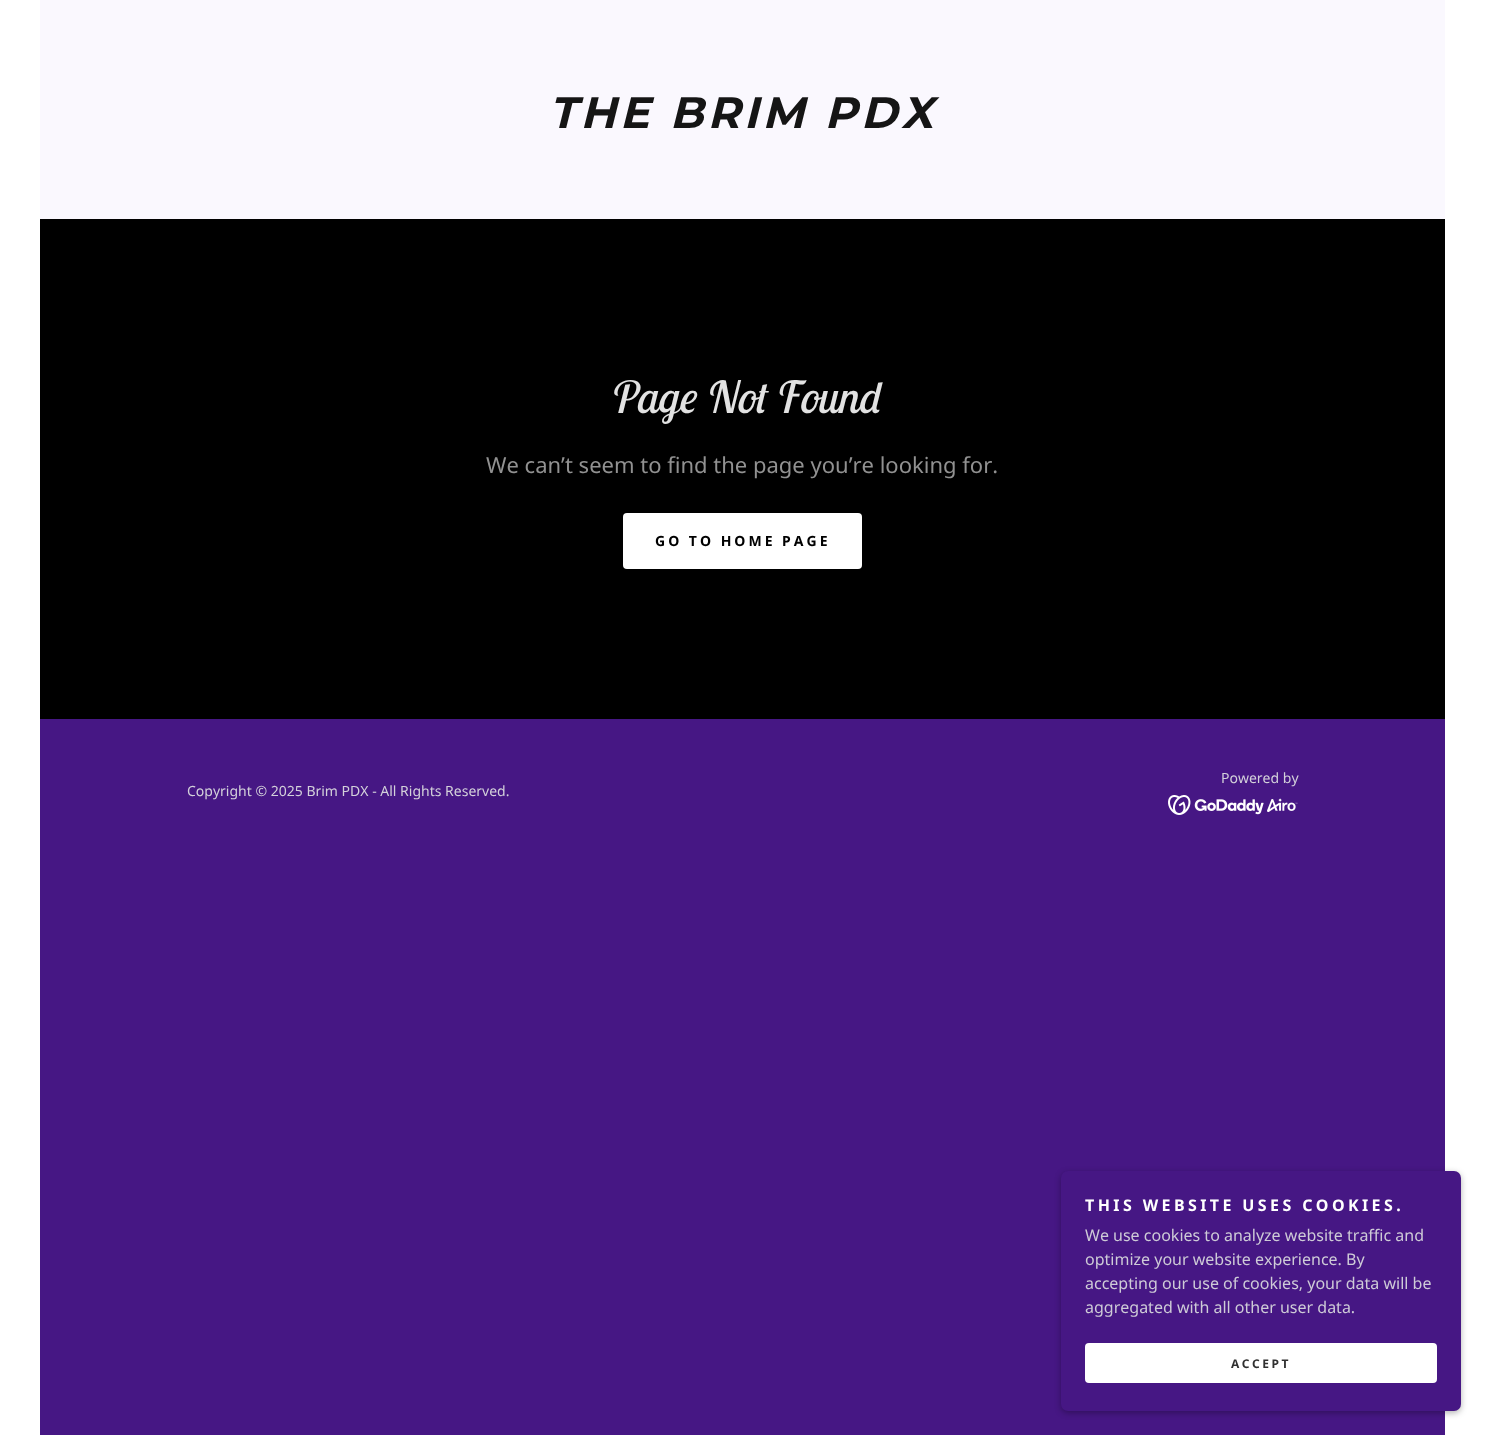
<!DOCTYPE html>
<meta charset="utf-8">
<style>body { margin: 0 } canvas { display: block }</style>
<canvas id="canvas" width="1485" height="1435"></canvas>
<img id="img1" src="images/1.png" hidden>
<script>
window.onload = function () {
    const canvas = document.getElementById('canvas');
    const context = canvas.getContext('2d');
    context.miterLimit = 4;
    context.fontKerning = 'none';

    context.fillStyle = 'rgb(255, 255, 255)';
    context.fillRect(0, 0, 1485, 1435);
    context.fillStyle = 'rgb(70, 23, 132)';
    context.fillRect(40, 719, 1405, 716);
    context.fillStyle = 'rgb(250, 248, 254)';
    context.fillRect(40, 0, 1405, 219);
    context.fillStyle = 'rgb(0, 0, 0)';
    context.fillRect(40, 219, 1405, 500);
    context.fillStyle = 'rgb(255, 255, 255)';
    context.beginPath();
    context.roundRect(623, 513, 239, 56, 4);
    context.fill();
    context.drawImage(document.getElementById('img1'), 1168, 795, 130, 20);
    context.fillStyle = 'rgba(0, 0, 0, 0.3)';
    context.filter = 'blur(3px)';
    context.beginPath();
    context.roundRect(1061, 1173, 400, 240, 7);
    context.fill();
    context.filter = 'none';
    context.fillStyle = 'rgb(70, 23, 132)';
    context.beginPath();
    context.roundRect(1061, 1171, 400, 240, 7);
    context.fill();
    context.fillStyle = 'rgb(255, 255, 255)';
    context.beginPath();
    context.roundRect(1085, 1343, 352, 40, 4);
    context.fill();
    context.letterSpacing = '4px';
    context.font = 'italic bold 44px Montserrat';
    context.fillStyle = 'rgb(21, 21, 21)';
    context.fillText('THE BRIM PDX', 549, 128);
    context.letterSpacing = '0px';
    context.font = 'italic 44px Lobster Two';
    context.fillStyle = 'rgb(226, 226, 226)';
    context.fillText('Page Not Found', 608, 413);
    context.font = '22px Noto Sans';
    context.fillStyle = 'rgb(145, 145, 145)';
    context.fillText('We can’t seem to find the page you’re looking for.', 486, 473);
    context.letterSpacing = '3px';
    context.font = 'bold 14px Noto Sans';
    context.fillStyle = 'rgb(0, 0, 0)';
    context.fillText('GO TO HOME PAGE', 655, 546);
    context.letterSpacing = '0px';
    context.font = '14px Noto Sans';
    context.fillStyle = 'rgb(211, 209, 218)';
    context.fillText('Powered by', 1221, 783);
    context.fillText('Copyright © 2025 Brim PDX - All Rights Reserved.', 187, 796);
    context.letterSpacing = '3.4px';
    context.font = 'bold 16px Noto Sans';
    context.fillStyle = 'rgb(255, 255, 255)';
    context.fillText('THIS WEBSITE USES COOKIES.', 1085, 1211);
    context.letterSpacing = '0px';
    context.font = '16px Noto Sans';
    context.fillStyle = 'rgb(206, 203, 215)';
    context.fillText('We use cookies to analyze website traffic and', 1085, 1241);
    context.fillText('optimize your website experience. By', 1085, 1265);
    context.fillText('accepting our use of cookies, your data will be', 1085, 1289);
    context.fillText('aggregated with all other user data.', 1085, 1313);
    context.letterSpacing = '2.5px';
    context.font = 'bold 12px Noto Sans';
    context.fillStyle = 'rgb(48, 48, 48)';
    context.fillText('ACCEPT', 1231, 1368);
};
</script>
